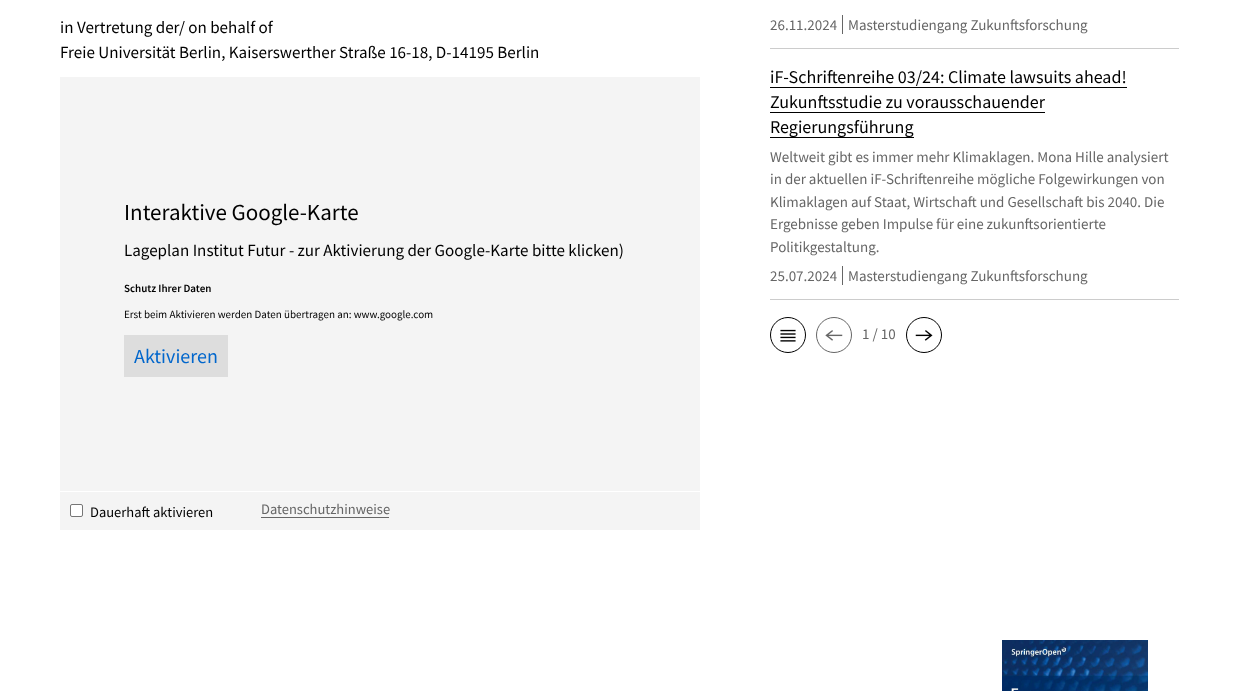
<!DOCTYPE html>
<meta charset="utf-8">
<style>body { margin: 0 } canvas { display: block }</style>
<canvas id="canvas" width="1239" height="691"></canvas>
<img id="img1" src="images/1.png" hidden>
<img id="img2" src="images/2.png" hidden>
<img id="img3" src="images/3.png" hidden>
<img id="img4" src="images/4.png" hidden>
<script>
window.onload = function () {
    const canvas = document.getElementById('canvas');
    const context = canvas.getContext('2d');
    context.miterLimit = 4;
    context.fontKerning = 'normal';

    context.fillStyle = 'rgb(255, 255, 255)';
    context.fillRect(0, 0, 1239, 691);
    context.fillStyle = 'rgb(244, 244, 244)';
    context.fillRect(60, 77, 640, 414);
    context.fillStyle = 'rgb(221, 221, 221)';
    context.fillRect(124, 335, 104, 42);
    context.fillStyle = 'rgb(244, 244, 244)';
    context.fillRect(60, 492, 640, 38);
    context.fillStyle = 'rgb(255, 255, 255)';
    context.beginPath();
    context.roundRect(70.5, 504.5, 12, 12, 1.5);
    context.fill();
    context.strokeStyle = 'rgb(118, 118, 118)';
    context.stroke();
    context.fillStyle = 'rgb(102, 102, 102)';
    context.fillRect(261, 517, 128, 1);
    context.fillStyle = 'rgb(204, 204, 204)';
    context.fillRect(770, 48, 409, 1);
    context.fillStyle = 'rgb(102, 102, 102)';
    context.fillRect(842, 15, 1, 19);
    context.fillStyle = 'rgb(204, 204, 204)';
    context.fillRect(770, 299, 409, 1);
    context.fillStyle = 'rgb(0, 0, 0)';
    context.fillRect(770, 87, 357, 1);
    context.fillRect(770, 112, 275, 1);
    context.fillRect(770, 137, 144, 1);
    context.fillStyle = 'rgb(102, 102, 102)';
    context.fillRect(842, 266, 1, 19);
    context.beginPath();
    context.arc(788, 335, 17.5, 0, 2 * Math.PI);
    context.strokeStyle = 'rgb(0, 0, 0)';
    context.stroke();
    context.drawImage(document.getElementById('img1'), 780, 329, 16, 13);
    context.beginPath();
    context.arc(834, 335, 17.5, 0, 2 * Math.PI);
    context.strokeStyle = 'rgb(102, 102, 102)';
    context.stroke();
    context.drawImage(document.getElementById('img2'), 825, 330, 18, 11);
    context.beginPath();
    context.arc(924, 335, 17.5, 0, 2 * Math.PI);
    context.strokeStyle = 'rgb(0, 0, 0)';
    context.stroke();
    context.drawImage(document.getElementById('img3'), 915, 330, 18, 11);
    context.drawImage(document.getElementById('img4'), 1002, 640, 146, 51);
    context.font = '17px Source Sans Pro';
    context.fillStyle = 'rgb(0, 0, 0)';
    context.fillText('in Vertretung der/ on behalf of', 60, 33);
    context.fillText('Freie Universität Berlin, Kaiserswerther Straße 16-18, D-14195 Berlin', 60, 58);
    context.font = '23px Source Sans Pro';
    context.fillText('Interaktive Google-Karte', 124, 220);
    context.font = '17px Source Sans Pro';
    context.fillText('Lageplan Institut Futur - zur Aktivierung der Google-Karte bitte klicken)', 124, 256);
    context.font = '600 11px Source Sans Pro';
    context.fillText('Schutz Ihrer Daten', 124, 292);
    context.font = '11px Source Sans Pro';
    context.fillText('Erst beim Aktivieren werden Daten übertragen an: www.google.com', 124, 318);
    context.font = '20px Source Sans Pro';
    context.fillStyle = 'rgb(0, 102, 204)';
    context.fillText('Aktivieren', 134, 363);
    context.font = '14.5px Source Sans Pro';
    context.fillStyle = 'rgb(0, 0, 0)';
    context.fillText('Dauerhaft aktivieren', 90, 517);
    context.fillStyle = 'rgb(102, 102, 102)';
    context.fillText('Datenschutzhinweise', 261, 514);
    context.font = '15px Source Sans Pro';
    context.fillText('26.11.2024', 770, 30);
    context.fillText('Masterstudiengang Zukunftsforschung', 848, 30);
    context.font = '18px Source Sans Pro';
    context.fillStyle = 'rgb(0, 0, 0)';
    context.fillText('iF-Schriftenreihe 03/24: Climate lawsuits ahead!', 770, 83);
    context.fillText('Zukunftsstudie zu vorausschauender', 770, 108);
    context.fillText('Regierungsführung', 770, 133);
    context.font = '15px Source Sans Pro';
    context.fillStyle = 'rgb(102, 102, 102)';
    context.fillText('Weltweit gibt es immer mehr Klimaklagen. Mona Hille analysiert', 770, 162);
    context.fillText('in der aktuellen iF-Schriftenreihe mögliche Folgewirkungen von', 770, 184);
    context.fillText('Klimaklagen auf Staat, Wirtschaft und Gesellschaft bis 2040. Die', 770, 207);
    context.fillText('Ergebnisse geben Impulse für eine zukunftsorientierte', 770, 229);
    context.fillText('Politikgestaltung.', 770, 252);
    context.fillText('25.07.2024', 770, 281);
    context.fillText('Masterstudiengang Zukunftsforschung', 848, 281);
    context.fillText('1 / 10', 862, 339);
};
</script>
